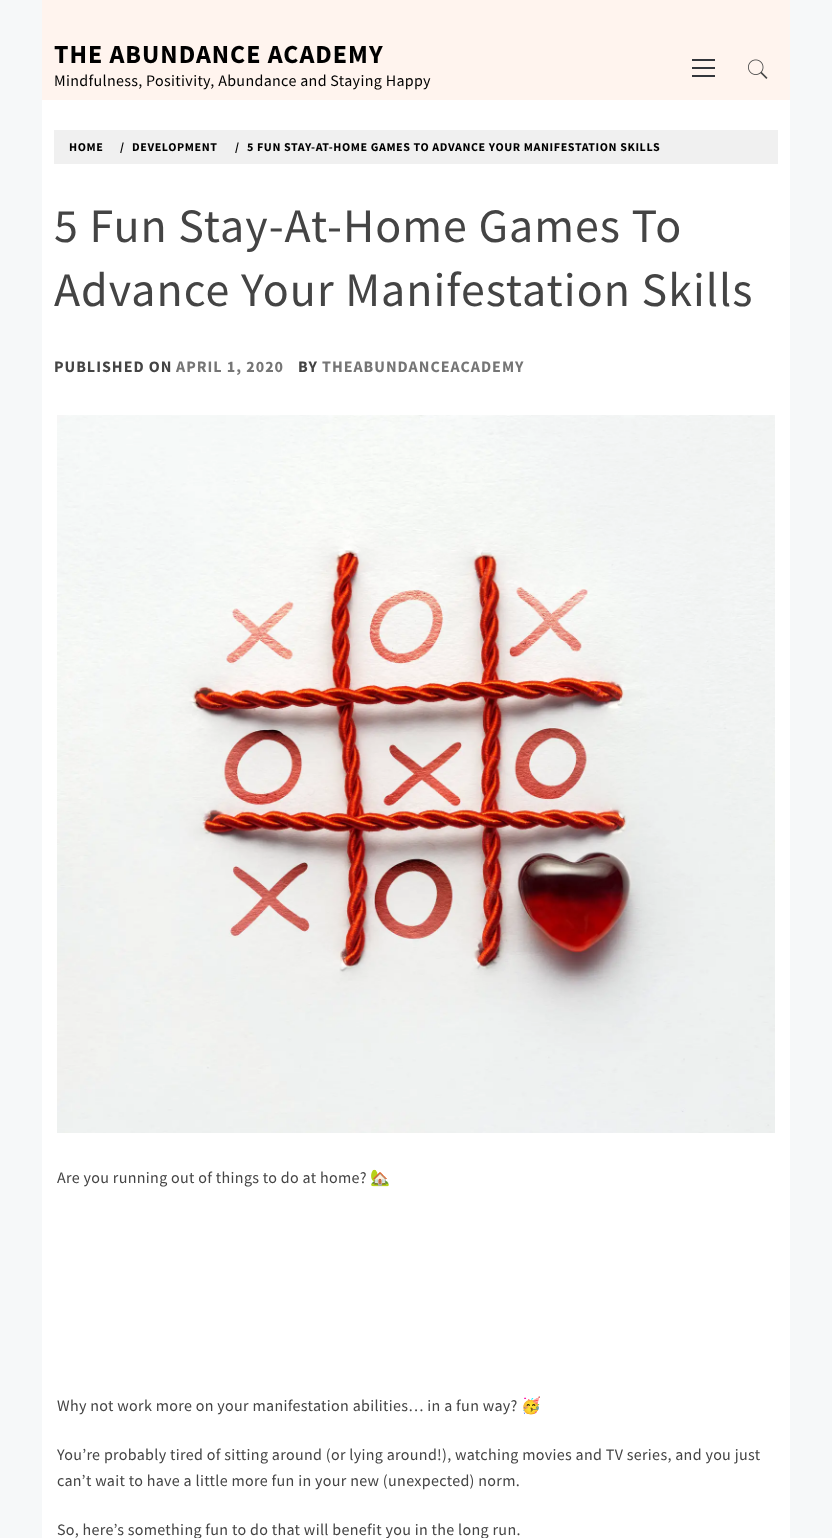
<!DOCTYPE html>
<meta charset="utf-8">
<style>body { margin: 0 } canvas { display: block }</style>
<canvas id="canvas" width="832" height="1538"></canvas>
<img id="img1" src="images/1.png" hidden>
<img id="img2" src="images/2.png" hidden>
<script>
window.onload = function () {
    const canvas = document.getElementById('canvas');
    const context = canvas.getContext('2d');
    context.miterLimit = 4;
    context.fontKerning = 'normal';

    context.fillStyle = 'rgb(246, 248, 249)';
    context.fillRect(0, 0, 832, 1538);
    context.fillStyle = 'rgb(255, 255, 255)';
    context.fillRect(42, 100, 748, 1438);
    context.fillStyle = 'rgb(255, 244, 238)';
    context.fillRect(42, 0, 748, 100);
    context.fillStyle = 'rgb(51, 54, 59)';
    context.fillRect(692, 67, 23, 2);
    context.fillRect(692, 59, 23, 2);
    context.fillRect(692, 75, 23, 2);
    context.drawImage(document.getElementById('img1'), 748, 59, 20, 20);
    context.fillStyle = 'rgb(240, 240, 240)';
    context.fillRect(54, 130, 724, 34);
    context.drawImage(document.getElementById('img2'), 57, 415, 718, 718);
    context.letterSpacing = '1px';
    context.font = 'bold 26px Source Sans Pro';
    context.fillStyle = 'rgb(0, 0, 0)';
    context.fillText('THE ABUNDANCE ACADEMY', 54, 63);
    context.letterSpacing = '0.32px';
    context.font = '16px Source Sans Pro';
    context.fillText('Mindfulness, Positivity, Abundance and Staying Happy', 54, 86);
    context.letterSpacing = '0.6px';
    context.font = 'bold 12px Source Sans Pro';
    context.fillText('HOME', 69, 151);
    context.fillText('/', 120, 151);
    context.fillText('DEVELOPMENT', 132, 151);
    context.fillText('/', 235, 151);
    context.fillText('5 FUN STAY-AT-HOME GAMES TO ADVANCE YOUR MANIFESTATION SKILLS', 247, 151);
    context.letterSpacing = '1px';
    context.font = '48px Source Sans Pro';
    context.fillStyle = 'rgb(68, 68, 68)';
    context.fillText('5 Fun Stay-At-Home Games To', 54, 242);
    context.fillText('Advance Your Manifestation Skills', 54, 306);
    context.font = 'bold 16px Source Sans Pro';
    context.fillText('PUBLISHED ON', 54, 372);
    context.fillStyle = 'rgb(117, 117, 117)';
    context.fillText('APRIL 1, 2020', 176, 372);
    context.fillStyle = 'rgb(68, 68, 68)';
    context.fillText('BY', 298, 372);
    context.fillStyle = 'rgb(117, 117, 117)';
    context.fillText('THEABUNDANCEACADEMY', 322, 372);
    context.letterSpacing = '0.32px';
    context.font = '16px Source Sans Pro';
    context.fillStyle = 'rgb(68, 68, 68)';
    context.fillText('Are you running out of things to do at home?', 57, 1183);
    context.font = '16px Noto Color Emoji';
    context.fillText('🏡', 370, 1183);
    context.font = '16px Source Sans Pro';
    context.fillText('Why not work more on your manifestation abilities… in a fun way?', 57, 1411);
    context.font = '16px Noto Color Emoji';
    context.fillText('🥳', 521, 1411);
    context.font = '16px Source Sans Pro';
    context.fillText('You’re probably tired of sitting around (or lying around!), watching movies and TV series, and you just', 57, 1460);
    context.fillText('can’t wait to have a little more fun in your new (unexpected) norm.', 57, 1486);
    context.fillText('So, here’s something fun to do that will benefit you in the long run.', 57, 1535);
};
</script>
